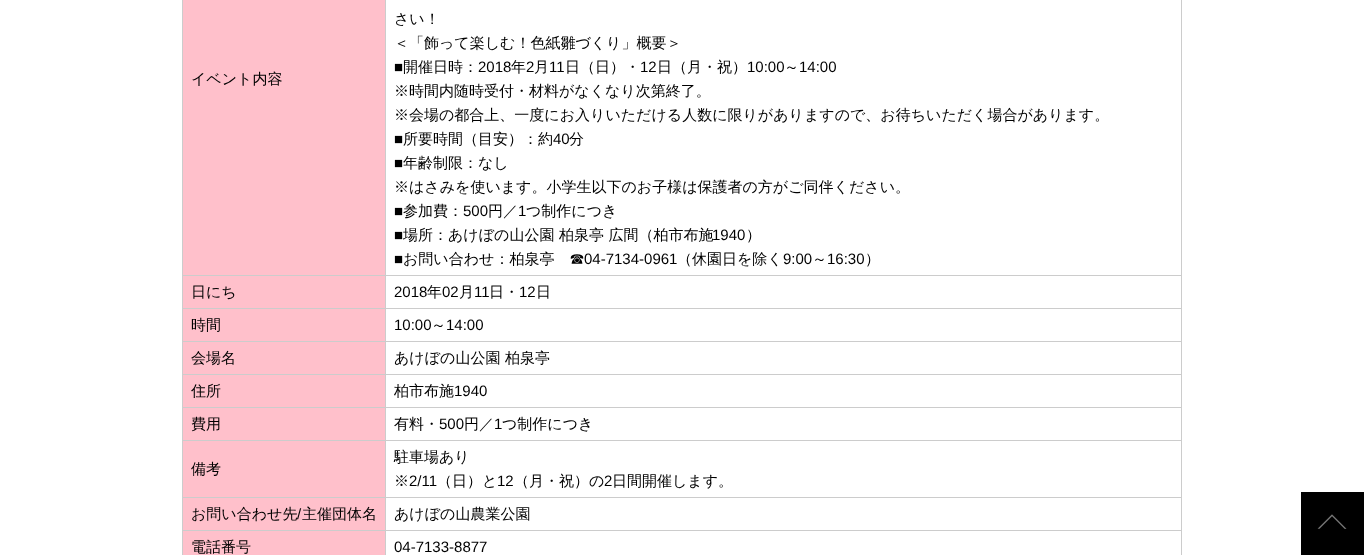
<!DOCTYPE html>
<meta charset="utf-8">
<style>body { margin: 0 } canvas { display: block }</style>
<canvas id="canvas" width="1364" height="555"></canvas>
<img id="img1" src="images/1.png" hidden>
<script>
window.onload = function () {
    const canvas = document.getElementById('canvas');
    const context = canvas.getContext('2d');
    context.miterLimit = 4;
    context.fontKerning = 'normal';

    context.fillStyle = 'rgb(255, 255, 255)';
    context.fillRect(0, 0, 1364, 555);
    context.fillStyle = 'rgb(255, 192, 203)';
    context.fillRect(183, 0, 202, 275);
    context.fillStyle = 'rgb(204, 204, 204)';
    context.fillRect(385, 275, 797, 1);
    context.fillRect(385, 308, 797, 1);
    context.fillRect(385, 341, 797, 1);
    context.fillRect(385, 374, 797, 1);
    context.fillRect(385, 407, 797, 1);
    context.fillRect(385, 440, 797, 1);
    context.fillRect(385, 497, 797, 1);
    context.fillRect(385, 530, 797, 1);
    context.fillRect(385, 530, 1, 25);
    context.fillRect(182, 530, 204, 1);
    context.fillRect(385, 497, 1, 34);
    context.fillRect(182, 497, 204, 1);
    context.fillRect(385, 440, 1, 58);
    context.fillRect(182, 440, 204, 1);
    context.fillRect(385, 407, 1, 34);
    context.fillRect(182, 407, 204, 1);
    context.fillRect(385, 374, 1, 34);
    context.fillRect(182, 374, 204, 1);
    context.fillRect(385, 341, 1, 34);
    context.fillRect(182, 341, 204, 1);
    context.fillRect(385, 308, 1, 34);
    context.fillRect(182, 308, 204, 1);
    context.fillRect(385, 275, 1, 34);
    context.fillRect(182, 275, 204, 1);
    context.fillRect(385, 0, 1, 276);
    context.fillStyle = 'rgb(255, 192, 203)';
    context.fillRect(183, 276, 202, 32);
    context.fillStyle = 'rgb(204, 204, 204)';
    context.fillRect(182, 530, 1, 25);
    context.fillRect(182, 497, 1, 34);
    context.fillRect(182, 440, 1, 58);
    context.fillRect(182, 407, 1, 34);
    context.fillRect(182, 374, 1, 34);
    context.fillRect(182, 341, 1, 34);
    context.fillRect(182, 308, 1, 34);
    context.fillRect(182, 0, 1, 309);
    context.fillRect(1181, 530, 1, 25);
    context.fillRect(1181, 497, 1, 34);
    context.fillRect(1181, 440, 1, 58);
    context.fillRect(1181, 407, 1, 34);
    context.fillRect(1181, 374, 1, 34);
    context.fillRect(1181, 341, 1, 34);
    context.fillRect(1181, 308, 1, 34);
    context.fillRect(1181, 0, 1, 309);
    context.fillStyle = 'rgb(255, 192, 203)';
    context.fillRect(183, 309, 202, 32);
    context.fillRect(183, 342, 202, 32);
    context.fillRect(183, 375, 202, 32);
    context.fillRect(183, 408, 202, 32);
    context.fillRect(183, 441, 202, 56);
    context.fillRect(183, 498, 202, 32);
    context.fillRect(183, 531, 202, 24);
    context.drawImage(document.getElementById('img1'), 1301, 492, 63, 63);
    context.font = '500 15px WenQuanYi Zen Hei';
    context.fillStyle = 'rgb(0, 0, 0)';
    context.fillText('イベント内容', 191, 84);
    context.fillText('さい！', 394, 24);
    context.fillText('＜「飾って楽しむ！色紙雛づくり」概要＞', 394, 48);
    context.font = '15px Liberation Sans';
    context.fillText('■', 394, 72);
    context.font = '500 15px WenQuanYi Zen Hei';
    context.fillText('開催日時：', 403, 72);
    context.font = '15px Liberation Sans';
    context.fillText('2018', 478, 72);
    context.font = '500 15px WenQuanYi Zen Hei';
    context.fillText('年', 511, 72);
    context.font = '15px Liberation Sans';
    context.fillText('2', 526, 72);
    context.font = '500 15px WenQuanYi Zen Hei';
    context.fillText('月', 534, 72);
    context.font = '15px Liberation Sans';
    context.fillText('11', 549, 72);
    context.font = '500 15px WenQuanYi Zen Hei';
    context.fillText('日（日）・', 565, 72);
    context.font = '15px Liberation Sans';
    context.fillText('12', 640, 72);
    context.font = '500 15px WenQuanYi Zen Hei';
    context.fillText('日（月・祝）', 657, 72);
    context.font = '15px Liberation Sans';
    context.fillText('10:00', 747, 72);
    context.font = '500 15px WenQuanYi Zen Hei';
    context.fillText('～', 784, 72);
    context.font = '15px Liberation Sans';
    context.fillText('14:00', 799, 72);
    context.font = '500 15px WenQuanYi Zen Hei';
    context.fillText('※時間内随時受付・材料がなくなり次第終了。', 394, 96);
    context.fillText('※会場の都合上、一度にお入りいただける人数に限りがありますので、お待ちいただく場合があります。', 394, 120);
    context.font = '15px Liberation Sans';
    context.fillText('■', 394, 144);
    context.font = '500 15px WenQuanYi Zen Hei';
    context.fillText('所要時間（目安）：約', 403, 144);
    context.font = '15px Liberation Sans';
    context.fillText('40', 553, 144);
    context.font = '500 15px WenQuanYi Zen Hei';
    context.fillText('分', 569, 144);
    context.font = '15px Liberation Sans';
    context.fillText('■', 394, 168);
    context.font = '500 15px WenQuanYi Zen Hei';
    context.fillText('年齢制限：なし', 403, 168);
    context.fillText('※はさみを使います。小学生以下のお子様は保護者の方がご同伴ください。', 394, 192);
    context.font = '15px Liberation Sans';
    context.fillText('■', 394, 216);
    context.font = '500 15px WenQuanYi Zen Hei';
    context.fillText('参加費：', 403, 216);
    context.font = '15px Liberation Sans';
    context.fillText('500', 463, 216);
    context.font = '500 15px WenQuanYi Zen Hei';
    context.fillText('円／', 488, 216);
    context.font = '15px Liberation Sans';
    context.fillText('1', 518, 216);
    context.font = '500 15px WenQuanYi Zen Hei';
    context.fillText('つ制作につき', 526, 216);
    context.font = '15px Liberation Sans';
    context.fillText('■', 394, 240);
    context.font = '500 15px WenQuanYi Zen Hei';
    context.fillText('場所：あけぼの山公園 柏泉亭 広間（柏市布施', 403, 240);
    context.font = '15px Liberation Sans';
    context.fillText('1940', 712, 240);
    context.font = '500 15px WenQuanYi Zen Hei';
    context.fillText('）', 746, 240);
    context.font = '15px Liberation Sans';
    context.fillText('■', 394, 264);
    context.font = '500 15px WenQuanYi Zen Hei';
    context.fillText('お問い合わせ：柏泉亭　☎', 403, 264);
    context.font = '15px Liberation Sans';
    context.fillText('04-7134-0961', 584, 264);
    context.font = '500 15px WenQuanYi Zen Hei';
    context.fillText('（休園日を除く', 677, 264);
    context.font = '15px Liberation Sans';
    context.fillText('9:00', 783, 264);
    context.font = '500 15px WenQuanYi Zen Hei';
    context.fillText('～', 812, 264);
    context.font = '15px Liberation Sans';
    context.fillText('16:30', 827, 264);
    context.font = '500 15px WenQuanYi Zen Hei';
    context.fillText('）', 865, 264);
    context.fillText('日にち', 191, 297);
    context.font = '15px Liberation Sans';
    context.fillText('2018', 394, 297);
    context.font = '500 15px WenQuanYi Zen Hei';
    context.fillText('年', 427, 297);
    context.font = '15px Liberation Sans';
    context.fillText('02', 442, 297);
    context.font = '500 15px WenQuanYi Zen Hei';
    context.fillText('月', 459, 297);
    context.font = '15px Liberation Sans';
    context.fillText('11', 474, 297);
    context.font = '500 15px WenQuanYi Zen Hei';
    context.fillText('日・', 489, 297);
    context.font = '15px Liberation Sans';
    context.fillText('12', 519, 297);
    context.font = '500 15px WenQuanYi Zen Hei';
    context.fillText('日', 536, 297);
    context.fillText('時間', 191, 330);
    context.font = '15px Liberation Sans';
    context.fillText('10:00', 394, 330);
    context.font = '500 15px WenQuanYi Zen Hei';
    context.fillText('～', 431, 330);
    context.font = '15px Liberation Sans';
    context.fillText('14:00', 446, 330);
    context.font = '500 15px WenQuanYi Zen Hei';
    context.fillText('会場名', 191, 363);
    context.fillText('あけぼの山公園 柏泉亭', 394, 363);
    context.fillText('住所', 191, 396);
    context.fillText('柏市布施', 394, 396);
    context.font = '15px Liberation Sans';
    context.fillText('1940', 454, 396);
    context.font = '500 15px WenQuanYi Zen Hei';
    context.fillText('費用', 191, 429);
    context.fillText('有料・', 394, 429);
    context.font = '15px Liberation Sans';
    context.fillText('500', 439, 429);
    context.font = '500 15px WenQuanYi Zen Hei';
    context.fillText('円／', 464, 429);
    context.font = '15px Liberation Sans';
    context.fillText('1', 494, 429);
    context.font = '500 15px WenQuanYi Zen Hei';
    context.fillText('つ制作につき', 502, 429);
    context.fillText('備考', 191, 474);
    context.fillText('駐車場あり', 394, 462);
    context.fillText('※', 394, 486);
    context.font = '15px Liberation Sans';
    context.fillText('2/11', 409, 486);
    context.font = '500 15px WenQuanYi Zen Hei';
    context.fillText('（日）と', 437, 486);
    context.font = '15px Liberation Sans';
    context.fillText('12', 497, 486);
    context.font = '500 15px WenQuanYi Zen Hei';
    context.fillText('（月・祝）の', 514, 486);
    context.font = '15px Liberation Sans';
    context.fillText('2', 604, 486);
    context.font = '500 15px WenQuanYi Zen Hei';
    context.fillText('日間開催します。', 612, 486);
    context.fillText('お問い合わせ先', 191, 519);
    context.font = '15px Liberation Sans';
    context.fillText('/', 297, 519);
    context.font = '500 15px WenQuanYi Zen Hei';
    context.fillText('主催団体名', 302, 519);
    context.fillText('あけぼの山農業公園', 394, 519);
    context.fillText('電話番号', 191, 552);
    context.font = '15px Liberation Sans';
    context.fillText('04-7133-8877', 394, 552);
};
</script>
